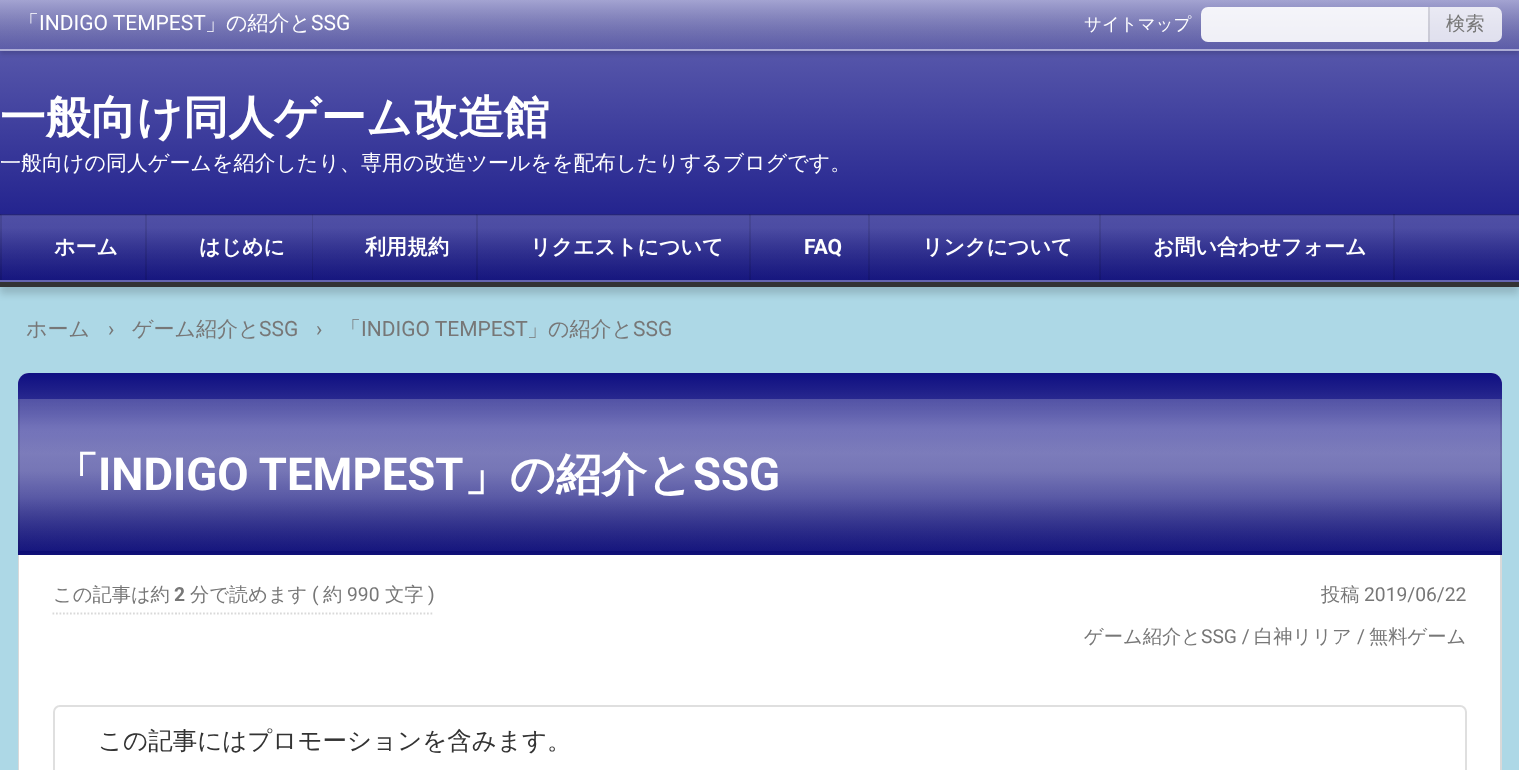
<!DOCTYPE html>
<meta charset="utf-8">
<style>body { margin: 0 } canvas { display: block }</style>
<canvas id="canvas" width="1519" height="770"></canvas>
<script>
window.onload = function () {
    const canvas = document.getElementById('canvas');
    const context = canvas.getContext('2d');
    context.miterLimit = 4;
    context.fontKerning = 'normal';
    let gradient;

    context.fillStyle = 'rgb(173, 216, 230)';
    context.fillRect(0, 0, 1519, 770);
    context.fillStyle = 'rgba(0, 0, 0, 0.15)';
    context.filter = 'blur(3.5px)';
    context.beginPath();
    context.rect(0, 7, 1519, 287);
    context.fill();
    context.filter = 'none';
    gradient = context.createLinearGradient(760, 0, 760, 282);
    gradient.addColorStop(0, 'rgb(102, 102, 179)');
    gradient.addColorStop(1, 'rgb(15, 15, 131)');
    context.fillStyle = gradient;
    context.fillRect(0, 0, 1519, 280);
    context.fillStyle = 'rgb(51, 51, 51)';
    context.fillRect(0, 282, 1519, 5);
    context.save();
    context.beginPath();
    context.moveTo(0, 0);
    context.lineTo(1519, 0);
    context.lineTo(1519, 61);
    context.lineTo(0, 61);
    context.closePath();
    context.moveTo(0, 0);
    context.lineTo(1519, 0);
    context.lineTo(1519, 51);
    context.lineTo(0, 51);
    context.closePath();
    context.clip('evenodd');
    context.fillStyle = 'rgba(0, 0, 0, 0.15)';
    context.filter = 'blur(2px)';
    context.beginPath();
    context.rect(0, 4, 1519, 50);
    context.fill();
    context.filter = 'none';
    context.restore();
    gradient = context.createLinearGradient(760, 0, 760, 49);
    gradient.addColorStop(0, 'rgba(255, 255, 255, 0.4)');
    gradient.addColorStop(1, 'rgba(153, 153, 153, 0.1)');
    context.fillStyle = gradient;
    context.fillRect(0, 0, 1519, 49);
    gradient = context.createLinearGradient(760, 49, 760, 98);
    gradient.addColorStop(0, 'rgba(255, 255, 255, 0.4)');
    gradient.addColorStop(1, 'rgba(153, 153, 153, 0.1)');
    context.fillStyle = gradient;
    context.fillRect(0, 49, 1519, 2);
    context.fillStyle = 'rgba(255, 255, 255, 0.2)';
    context.fillRect(0, 49, 1519, 2);
    context.fillStyle = 'rgba(255, 255, 255, 0.9)';
    context.beginPath();
    context.roundRect(1201, 7, 227, 35, [7, 0, 0, 7]);
    context.fill();
    context.fillStyle = 'rgba(255, 255, 255, 0.8)';
    context.beginPath();
    context.roundRect(1428, 7, 74, 35, [0, 7, 7, 0]);
    context.fill();
    context.fillStyle = 'rgba(0, 0, 0, 0.1)';
    context.fillRect(1428, 7, 2, 35);
    gradient = context.createLinearGradient(760, 150, 760, 215);
    gradient.addColorStop(0.2, 'rgb(80, 80, 165)');
    gradient.addColorStop(1, 'rgb(41, 41, 136)');
    context.fillStyle = gradient;
    context.fillRect(0, 214, 1519, 1);
    gradient = context.createLinearGradient(760, 215, 760, 280);
    gradient.addColorStop(0.2, 'rgba(255, 255, 255, 0.2)');
    gradient.addColorStop(1, 'rgba(85, 85, 85, 0.1)');
    context.fillStyle = gradient;
    context.fillRect(0, 215, 1519, 65);
    context.fillStyle = 'rgba(0, 0, 0, 0.1)';
    context.fillRect(0, 214, 1519, 2);
    context.fillStyle = 'rgb(101, 101, 176)';
    context.fillRect(0, 280, 1519, 2);
    context.fillStyle = 'rgba(0, 0, 0, 0.1)';
    context.beginPath();
    context.moveTo(0, 280);
    context.lineTo(0, 214);
    context.lineTo(2, 215);
    context.lineTo(2, 280);
    context.closePath();
    context.fill();
    context.beginPath();
    context.moveTo(145, 280);
    context.lineTo(145, 214);
    context.lineTo(147, 215);
    context.lineTo(147, 280);
    context.closePath();
    context.fill();
    context.beginPath();
    context.moveTo(312, 280);
    context.lineTo(312, 214);
    context.lineTo(313, 215);
    context.lineTo(313, 280);
    context.closePath();
    context.fill();
    context.beginPath();
    context.moveTo(476, 280);
    context.lineTo(476, 214);
    context.lineTo(478, 215);
    context.lineTo(478, 280);
    context.closePath();
    context.fill();
    context.beginPath();
    context.moveTo(749, 280);
    context.lineTo(749, 214);
    context.lineTo(751, 215);
    context.lineTo(751, 280);
    context.closePath();
    context.fill();
    context.beginPath();
    context.moveTo(868, 280);
    context.lineTo(868, 214);
    context.lineTo(870, 215);
    context.lineTo(870, 280);
    context.closePath();
    context.fill();
    context.fillRect(1393, 214, 2, 66);
    context.beginPath();
    context.moveTo(1099, 280);
    context.lineTo(1099, 214);
    context.lineTo(1101, 215);
    context.lineTo(1101, 280);
    context.closePath();
    context.fill();
    context.fillStyle = 'rgb(255, 255, 255)';
    context.beginPath();
    context.roundRect(18, 373, 1484, 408, 11);
    context.fill();
    context.fillStyle = 'rgb(0, 0, 128)';
    context.beginPath();
    context.roundRect(18, 373, 1484, 182, [11, 11, 0, 0]);
    context.fill();
    gradient = context.createLinearGradient(760, 373, 760, 551);
    gradient.addColorStop(0, 'rgba(153, 153, 153, 0.1)');
    gradient.addColorStop(0.3, 'rgba(255, 255, 255, 0.3)');
    gradient.addColorStop(0.45, 'rgba(255, 255, 255, 0.4)');
    gradient.addColorStop(0.55, 'rgba(255, 255, 255, 0.4)');
    gradient.addColorStop(0.7, 'rgba(255, 255, 255, 0.3)');
    gradient.addColorStop(1, 'rgba(153, 153, 153, 0.1)');
    context.fillStyle = gradient;
    context.beginPath();
    context.roundRect(18, 373, 1484, 178, [11, 11, 0, 0]);
    context.fill();
    gradient = context.createLinearGradient(760, 551, 760, 730);
    gradient.addColorStop(0, 'rgb(15, 15, 131)');
    gradient.addColorStop(0.3, 'rgb(77, 77, 166)');
    gradient.addColorStop(0.45, 'rgb(102, 102, 179)');
    gradient.addColorStop(0.55, 'rgb(102, 102, 179)');
    gradient.addColorStop(0.7, 'rgb(77, 77, 166)');
    gradient.addColorStop(1, 'rgb(15, 15, 131)');
    context.fillStyle = gradient;
    context.fillRect(18, 551, 1484, 4);
    context.fillStyle = 'rgba(0, 0, 0, 0.1)';
    context.fillRect(18, 551, 1484, 4);
    gradient = context.createLinearGradient(760, 399, 760, 551);
    gradient.addColorStop(0.2, 'rgba(255, 255, 255, 0.2)');
    gradient.addColorStop(1, 'rgba(85, 85, 85, 0.1)');
    context.fillStyle = gradient;
    context.fillRect(18, 399, 1484, 152);
    context.fillStyle = 'rgba(0, 0, 0, 0.1)';
    context.fillRect(1500, 399, 2, 152);
    context.fillRect(18, 399, 2, 152);
    context.fillStyle = 'rgb(217, 217, 217)';
    context.beginPath();
    context.moveTo(18, 555);
    context.lineTo(1502, 555);
    context.lineTo(1502, 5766);
    context.bezierCurveTo(1502, 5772, 1497, 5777, 1491, 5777);
    context.lineTo(28, 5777);
    context.bezierCurveTo(22, 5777, 18, 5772, 18, 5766);
    context.closePath();
    context.moveTo(19, 555);
    context.lineTo(1500, 555);
    context.lineTo(1500, 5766);
    context.bezierCurveTo(1500, 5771, 1496, 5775, 1491, 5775);
    context.lineTo(28, 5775);
    context.bezierCurveTo(23, 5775, 19, 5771, 19, 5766);
    context.closePath();
    context.fill('evenodd');
    context.beginPath();
    context.moveTo(52.5, 613.5);
    context.lineTo(175, 613.5);
    context.strokeStyle = 'rgb(217, 217, 217)';
    context.lineWidth = 1.8;
    context.setLineDash([1.75, 1.75]);
    context.stroke();
    context.beginPath();
    context.moveTo(175, 613.5);
    context.lineTo(177, 613.5);
    context.moveTo(178.5, 613.5);
    context.lineTo(180, 613.5);
    context.moveTo(182, 613.5);
    context.lineTo(183.5, 613.5);
    context.setLineDash([]);
    context.stroke();
    context.beginPath();
    context.moveTo(185.5, 613.5);
    context.lineTo(434, 613.5);
    context.setLineDash([1.75, 1.75]);
    context.stroke();
    context.beginPath();
    context.roundRect(54, 706, 1412, 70, 6);
    context.strokeStyle = 'rgb(223, 223, 223)';
    context.lineWidth = 2;
    context.setLineDash([]);
    context.stroke();
    context.font = '500 21px WenQuanYi Zen Hei';
    context.fillStyle = 'rgb(255, 255, 255)';
    context.fillText('「', 18, 30);
    context.font = '21px Roboto';
    context.fillText('INDIGO TEMPEST', 39, 30);
    context.font = '500 21px WenQuanYi Zen Hei';
    context.fillText('」の紹介と', 205, 30);
    context.font = '21px Roboto';
    context.fillText('SSG', 311, 30);
    context.font = '500 17.5px WenQuanYi Zen Hei';
    context.fillText('サイトマップ', 1084, 30);
    context.font = '500 19.25px WenQuanYi Zen Hei';
    context.fillStyle = 'rgb(119, 119, 119)';
    context.fillText('検索', 1446, 30);
    context.font = 'bold 45.5px WenQuanYi Zen Hei';
    context.fillStyle = 'rgb(255, 255, 255)';
    context.fillText('一般向け同人ゲーム改造館', 0, 133);
    context.font = '500 21px WenQuanYi Zen Hei';
    context.fillText('一般向けの同人ゲームを紹介したり、専用の改造ツールをを配布したりするブログです。', 0, 170);
    context.font = 'bold 21px WenQuanYi Zen Hei';
    context.fillText('ホーム', 54, 254);
    context.fillText('はじめに', 199, 254);
    context.fillText('利用規約', 365, 254);
    context.fillText('リクエストについて', 530, 254);
    context.font = 'bold 21px Roboto';
    context.fillText('FAQ', 804, 254);
    context.font = 'bold 21px WenQuanYi Zen Hei';
    context.fillText('リンクについて', 922, 254);
    context.fillText('お問い合わせフォーム', 1153, 254);
    context.font = '500 21px WenQuanYi Zen Hei';
    context.fillStyle = 'rgb(119, 119, 119)';
    context.fillText('ホーム', 26, 336);
    context.font = '21px Roboto';
    context.fillText('›', 108, 336);
    context.font = '500 21px WenQuanYi Zen Hei';
    context.fillText('ゲーム紹介と', 132, 336);
    context.font = '21px Roboto';
    context.fillText('SSG', 259, 336);
    context.fillText('›', 316, 336);
    context.font = '500 21px WenQuanYi Zen Hei';
    context.fillText('「', 340, 336);
    context.font = '21px Roboto';
    context.fillText('INDIGO TEMPEST', 361, 336);
    context.font = '500 21px WenQuanYi Zen Hei';
    context.fillText('」の紹介と', 527, 336);
    context.font = '21px Roboto';
    context.fillText('SSG', 633, 336);
    context.font = 'bold 45.5px WenQuanYi Zen Hei';
    context.fillStyle = 'rgb(255, 255, 255)';
    context.fillText('「', 53, 490);
    context.font = 'bold 45.5px Roboto';
    context.fillText('INDIGO TEMPEST', 98, 490);
    context.font = 'bold 45.5px WenQuanYi Zen Hei';
    context.fillText('」の紹介と', 464, 490);
    context.font = 'bold 45.5px Roboto';
    context.fillText('SSG', 693, 490);
    context.font = '500 19.25px WenQuanYi Zen Hei';
    context.fillStyle = 'rgb(119, 119, 119)';
    context.fillText('この記事は約', 53, 601);
    context.font = 'bold 19.25px Roboto';
    context.fillText('2', 174, 601);
    context.font = '500 19.25px WenQuanYi Zen Hei';
    context.fillText('分で読めます', 190, 601);
    context.font = '19.25px Roboto';
    context.fillText('(', 312, 601);
    context.font = '500 19.25px WenQuanYi Zen Hei';
    context.fillText('約', 323, 601);
    context.font = '19.25px Roboto';
    context.fillText('990', 347, 601);
    context.font = '500 19.25px WenQuanYi Zen Hei';
    context.fillText('文字', 385, 601);
    context.font = '19.25px Roboto';
    context.fillText(')', 428, 601);
    context.font = '500 19.25px WenQuanYi Zen Hei';
    context.fillText('投稿', 1321, 601);
    context.font = '19.25px Roboto';
    context.fillText('2019/06/22', 1364, 601);
    context.font = '500 19.25px WenQuanYi Zen Hei';
    context.fillText('ゲーム紹介と', 1084, 643);
    context.font = '19.25px Roboto';
    context.fillText('SSG /', 1201, 643);
    context.font = '500 19.25px WenQuanYi Zen Hei';
    context.fillText('白神リリア', 1254, 643);
    context.font = '19.25px Roboto';
    context.fillText('/', 1357, 643);
    context.font = '500 19.25px WenQuanYi Zen Hei';
    context.fillText('無料ゲーム', 1369, 643);
    context.font = '500 24.5px WenQuanYi Zen Hei';
    context.fillStyle = 'rgb(51, 51, 51)';
    context.fillText('この記事にはプロモーションを含みます。', 98, 749);
};
</script>
